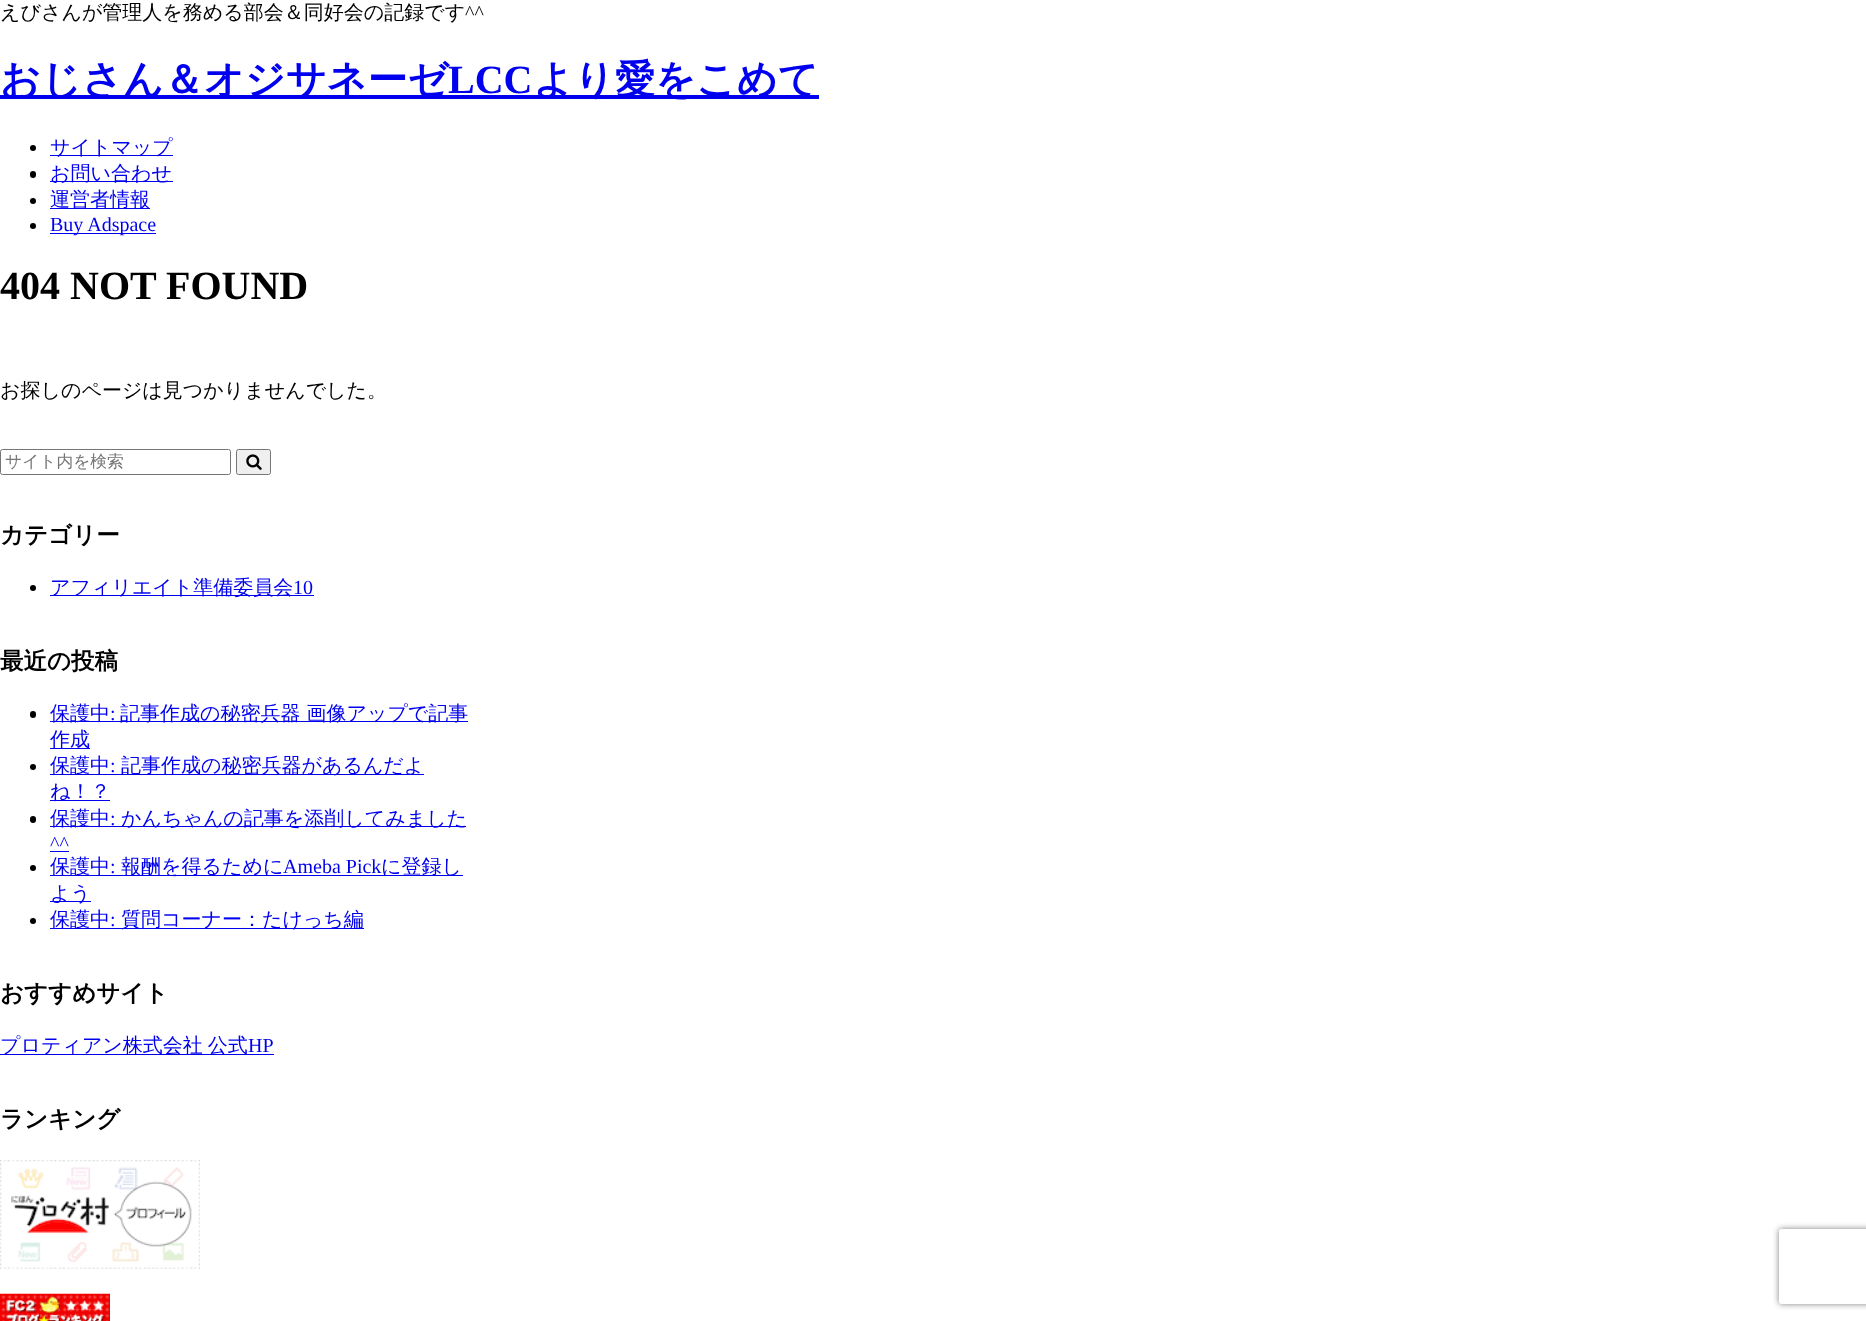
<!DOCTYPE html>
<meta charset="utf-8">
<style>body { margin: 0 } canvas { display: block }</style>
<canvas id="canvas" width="1866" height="1321"></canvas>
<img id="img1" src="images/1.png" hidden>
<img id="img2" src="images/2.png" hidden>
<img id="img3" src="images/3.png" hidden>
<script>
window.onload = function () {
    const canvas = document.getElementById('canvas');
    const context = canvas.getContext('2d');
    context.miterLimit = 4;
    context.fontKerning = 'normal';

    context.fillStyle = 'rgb(255, 255, 255)';
    context.fillRect(0, 0, 1866, 1321);
    context.fillStyle = 'rgb(0, 0, 238)';
    context.fillRect(0, 95, 819, 4);
    context.fillStyle = 'rgb(0, 0, 0)';
    context.beginPath();
    context.arc(33, 148, 3, 0, 2 * Math.PI);
    context.fill();
    context.fillStyle = 'rgb(0, 0, 238)';
    context.fillRect(50, 155, 123, 1);
    context.fillStyle = 'rgb(0, 0, 0)';
    context.beginPath();
    context.roundRect(30, 171, 6, 7, 3);
    context.fill();
    context.fillStyle = 'rgb(0, 0, 238)';
    context.fillRect(50, 181, 123, 1);
    context.fillStyle = 'rgb(0, 0, 0)';
    context.beginPath();
    context.arc(33, 201, 3, 0, 2 * Math.PI);
    context.fill();
    context.fillStyle = 'rgb(0, 0, 238)';
    context.fillRect(50, 208, 100, 1);
    context.fillStyle = 'rgb(0, 0, 0)';
    context.beginPath();
    context.arc(33, 226, 3, 0, 2 * Math.PI);
    context.fill();
    context.fillStyle = 'rgb(0, 0, 238)';
    context.fillRect(50, 233, 106, 1);
    context.beginPath();
    context.roundRect(0.5, 449.5, 230, 25, 2);
    context.strokeStyle = 'rgb(118, 118, 118)';
    context.stroke();
    context.fillStyle = 'rgb(239, 239, 239)';
    context.beginPath();
    context.roundRect(236.5, 449.5, 34, 25, 2);
    context.fill();
    context.stroke();
    context.drawImage(document.getElementById('img1'), 246, 454, 16, 16);
    context.fillStyle = 'rgb(0, 0, 0)';
    context.beginPath();
    context.arc(33, 588, 3, 0, 2 * Math.PI);
    context.fill();
    context.fillStyle = 'rgb(0, 0, 238)';
    context.fillRect(50, 595, 264, 1);
    context.fillStyle = 'rgb(0, 0, 0)';
    context.beginPath();
    context.roundRect(30, 711, 6, 7, 3);
    context.fill();
    context.fillStyle = 'rgb(0, 0, 238)';
    context.fillRect(50, 721, 418, 1);
    context.fillRect(50, 748, 40, 1);
    context.fillStyle = 'rgb(0, 0, 0)';
    context.beginPath();
    context.arc(33, 767, 3, 0, 2 * Math.PI);
    context.fill();
    context.fillStyle = 'rgb(0, 0, 238)';
    context.fillRect(50, 774, 374, 1);
    context.fillRect(50, 800, 60, 1);
    context.fillStyle = 'rgb(0, 0, 0)';
    context.beginPath();
    context.roundRect(30, 816, 6, 7, 3);
    context.fill();
    context.fillStyle = 'rgb(0, 0, 238)';
    context.fillRect(50, 826, 416, 1);
    context.fillRect(50, 851, 19, 1);
    context.fillStyle = 'rgb(0, 0, 0)';
    context.beginPath();
    context.arc(33, 868, 3, 0, 2 * Math.PI);
    context.fill();
    context.fillStyle = 'rgb(0, 0, 238)';
    context.fillRect(50, 875, 413, 1);
    context.fillRect(50, 901, 41, 1);
    context.fillStyle = 'rgb(0, 0, 0)';
    context.beginPath();
    context.arc(33, 921, 3, 0, 2 * Math.PI);
    context.fill();
    context.fillStyle = 'rgb(0, 0, 238)';
    context.fillRect(50, 928, 314, 1);
    context.fillRect(0, 1054, 274, 1);
    context.drawImage(document.getElementById('img2'), 0, 1160, 200, 109);
    context.drawImage(document.getElementById('img3'), 0, 1293, 110, 28);
    context.save();
    context.beginPath();
    context.moveTo(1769, 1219);
    context.lineTo(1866, 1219);
    context.lineTo(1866, 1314);
    context.lineTo(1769, 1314);
    context.closePath();
    context.moveTo(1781.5, 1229);
    context.lineTo(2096.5, 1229);
    context.bezierCurveTo(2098, 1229, 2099, 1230, 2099, 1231.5);
    context.lineTo(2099, 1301.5);
    context.bezierCurveTo(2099, 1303, 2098, 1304, 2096.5, 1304);
    context.lineTo(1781.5, 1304);
    context.bezierCurveTo(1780, 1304, 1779, 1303, 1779, 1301.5);
    context.lineTo(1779, 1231.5);
    context.bezierCurveTo(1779, 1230, 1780, 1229, 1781.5, 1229);
    context.closePath();
    context.clip('evenodd');
    context.fillStyle = 'rgb(128, 128, 128)';
    context.filter = 'blur(3px)';
    context.beginPath();
    context.roundRect(1779, 1229, 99, 75, 2.5);
    context.fill();
    context.filter = 'none';
    context.restore();
    context.font = '500 20px WenQuanYi Zen Hei';
    context.fillStyle = 'rgb(0, 0, 0)';
    context.fillText('えびさんが管理人を務める部会＆同好会の記録です', 0, 19);
    context.font = '20px Liberation Serif';
    context.fillText('^^', 465, 19);
    context.font = 'bold 40px WenQuanYi Zen Hei';
    context.fillStyle = 'rgb(0, 0, 238)';
    context.fillText('おじさん＆オジサネーゼ', 0, 93);
    context.font = 'bold 40px Liberation Serif';
    context.fillText('LCC', 448, 93);
    context.font = 'bold 40px WenQuanYi Zen Hei';
    context.fillText('より愛をこめて', 533, 93);
    context.font = '500 20px WenQuanYi Zen Hei';
    context.fillText('サイトマップ', 50, 154);
    context.fillText('お問い合わせ', 50, 180);
    context.fillText('運営者情報', 50, 206);
    context.font = '20px Liberation Serif';
    context.fillText('Buy Adspace', 50, 231);
    context.font = 'bold 40px Liberation Serif';
    context.fillStyle = 'rgb(0, 0, 0)';
    context.fillText('404 NOT FOUND', 0, 299);
    context.font = '500 20px WenQuanYi Zen Hei';
    context.fillText('お探しのページは見つかりませんでした。', 0, 397);
    context.font = '500 16.75px WenQuanYi Zen Hei';
    context.fillStyle = 'rgb(117, 117, 117)';
    context.fillText('サイト内を検索', 5, 467);
    context.font = 'bold 23.5px WenQuanYi Zen Hei';
    context.fillStyle = 'rgb(0, 0, 0)';
    context.fillText('カテゴリー', 0, 543);
    context.font = '500 20px WenQuanYi Zen Hei';
    context.fillStyle = 'rgb(0, 0, 238)';
    context.fillText('アフィリエイト準備委員会', 50, 594);
    context.font = '20px Liberation Serif';
    context.fillText('10', 293, 594);
    context.font = 'bold 23.5px WenQuanYi Zen Hei';
    context.fillStyle = 'rgb(0, 0, 0)';
    context.fillText('最近の投稿', 0, 669);
    context.font = '500 20px WenQuanYi Zen Hei';
    context.fillStyle = 'rgb(0, 0, 238)';
    context.fillText('保護中', 50, 720);
    context.font = '20px Liberation Serif';
    context.fillText(':', 110, 720);
    context.font = '500 20px WenQuanYi Zen Hei';
    context.fillText('記事作成の秘密兵器 画像アップで記事', 120, 720);
    context.fillText('作成', 50, 746);
    context.fillText('保護中', 50, 772);
    context.font = '20px Liberation Serif';
    context.fillText(':', 110, 772);
    context.font = '500 20px WenQuanYi Zen Hei';
    context.fillText('記事作成の秘密兵器があるんだよ', 121, 772);
    context.fillText('ね！？', 50, 798);
    context.fillText('保護中', 50, 825);
    context.font = '20px Liberation Serif';
    context.fillText(':', 110, 825);
    context.font = '500 20px WenQuanYi Zen Hei';
    context.fillText('かんちゃんの記事を添削してみました', 121, 825);
    context.font = '20px Liberation Serif';
    context.fillText('^^', 50, 850);
    context.font = '500 20px WenQuanYi Zen Hei';
    context.fillText('保護中', 50, 873);
    context.font = '20px Liberation Serif';
    context.fillText(':', 110, 873);
    context.font = '500 20px WenQuanYi Zen Hei';
    context.fillText('報酬を得るために', 121, 873);
    context.font = '20px Liberation Serif';
    context.fillText('Ameba Pick', 283, 873);
    context.font = '500 20px WenQuanYi Zen Hei';
    context.fillText('に登録し', 381, 873);
    context.fillText('よう', 50, 900);
    context.fillText('保護中', 50, 926);
    context.font = '20px Liberation Serif';
    context.fillText(':', 110, 926);
    context.font = '500 20px WenQuanYi Zen Hei';
    context.fillText('質問コーナー：たけっち編', 121, 926);
    context.font = 'bold 23.5px WenQuanYi Zen Hei';
    context.fillStyle = 'rgb(0, 0, 0)';
    context.fillText('おすすめサイト', 0, 1001);
    context.wordSpacing = '-1px';
    context.font = '500 20px WenQuanYi Zen Hei';
    context.fillStyle = 'rgb(0, 0, 238)';
    context.fillText('プロティアン株式会社 公式', 0, 1052);
    context.wordSpacing = '0px';
    context.font = '20px Liberation Serif';
    context.fillText('HP', 248, 1052);
    context.font = 'bold 23.5px WenQuanYi Zen Hei';
    context.fillStyle = 'rgb(0, 0, 0)';
    context.fillText('ランキング', 0, 1127);
};
</script>
